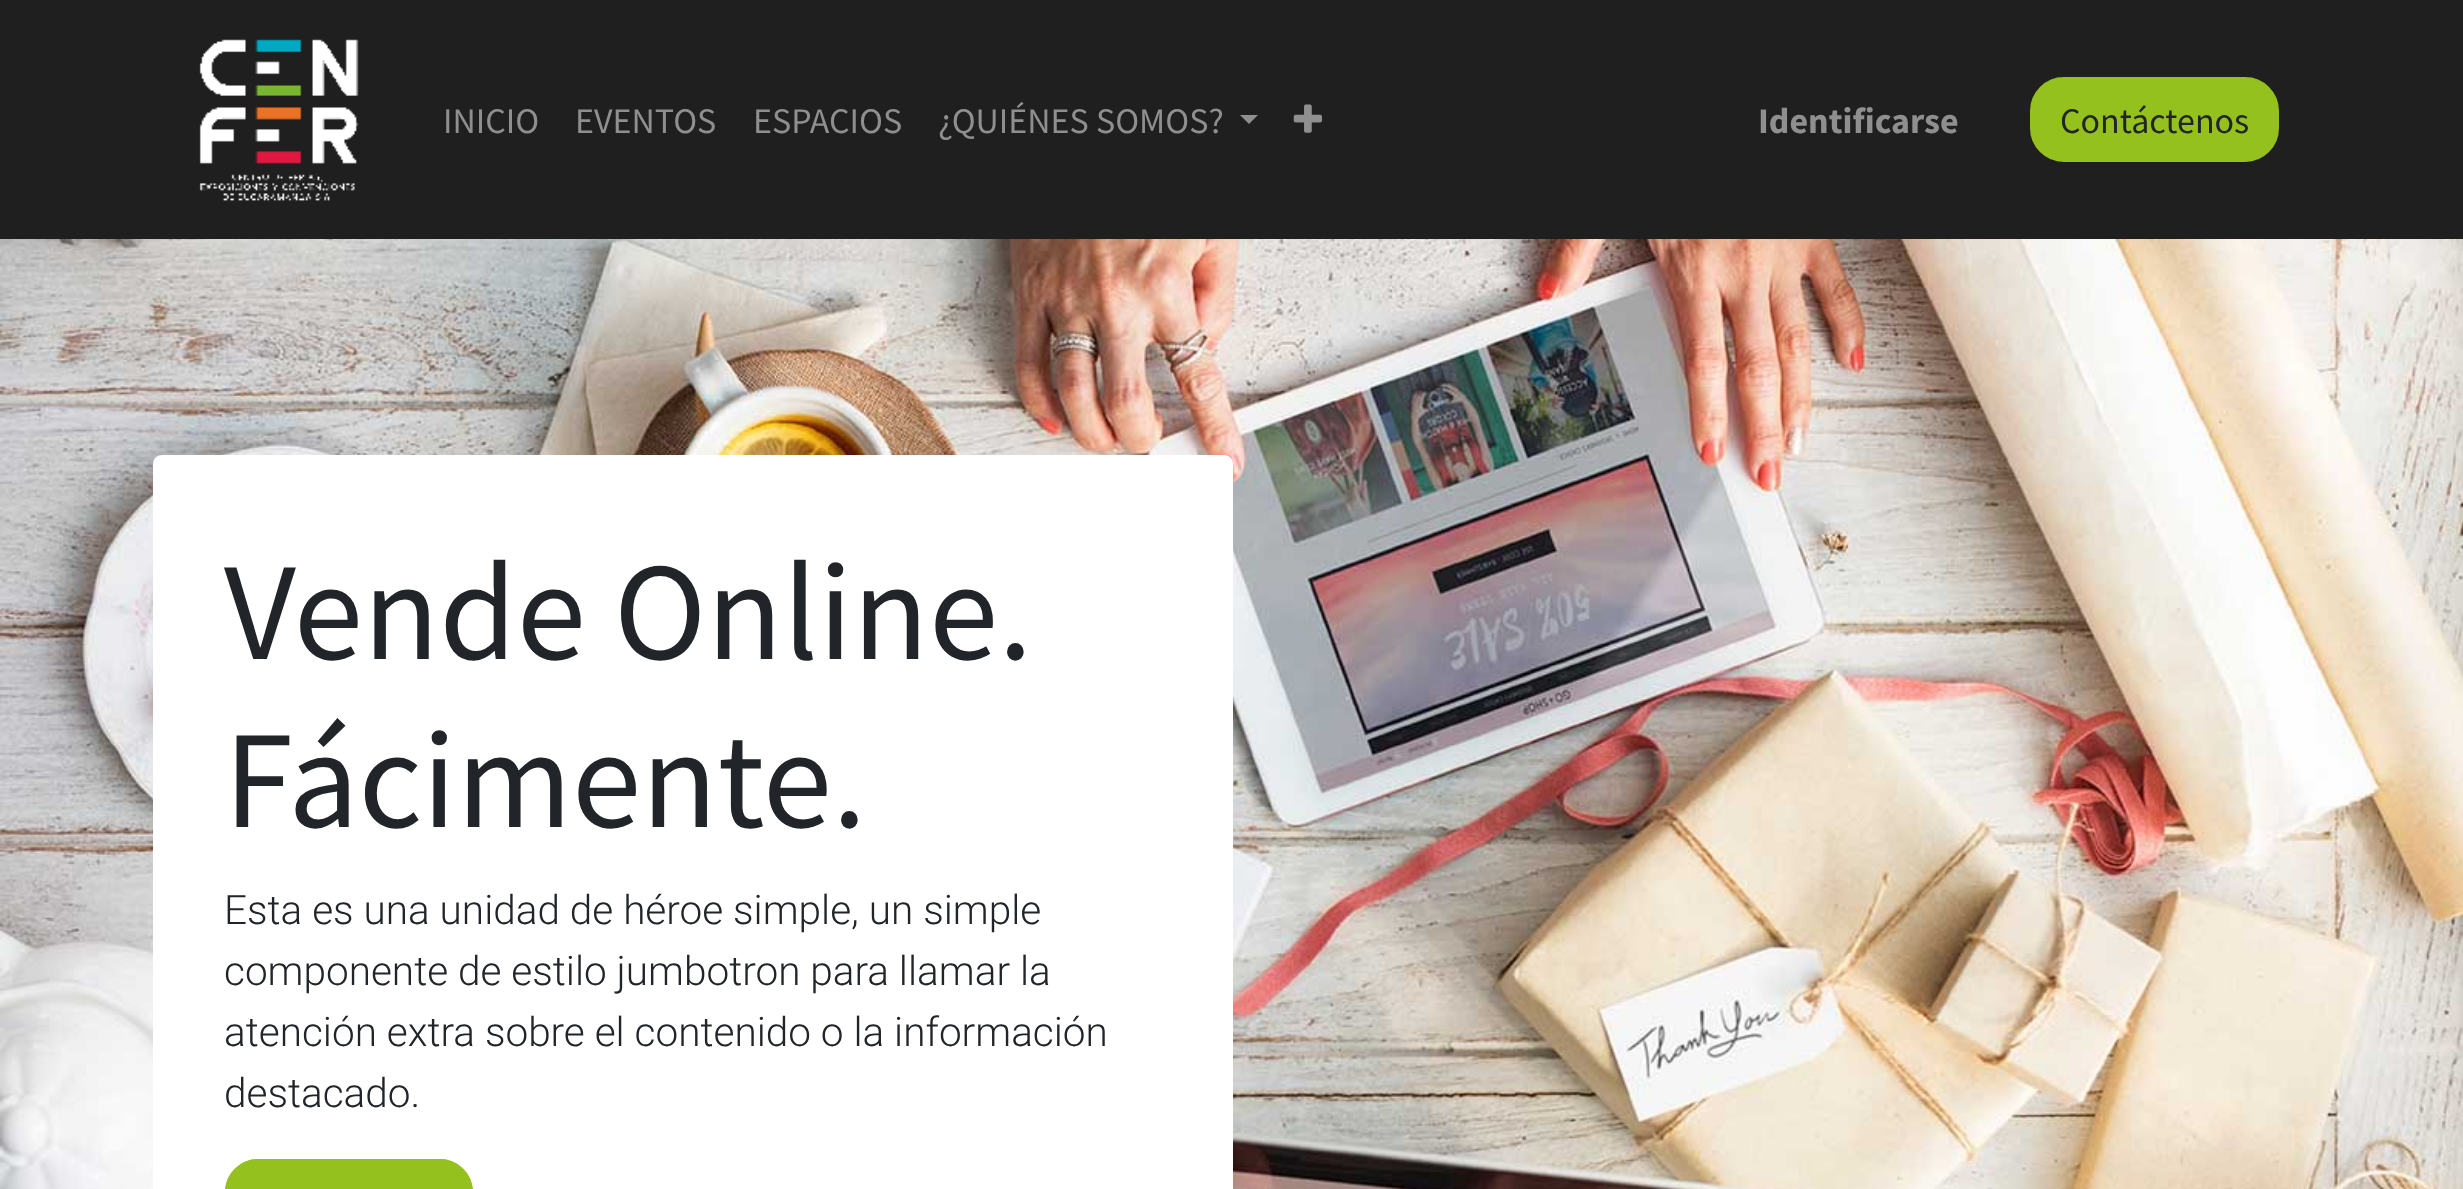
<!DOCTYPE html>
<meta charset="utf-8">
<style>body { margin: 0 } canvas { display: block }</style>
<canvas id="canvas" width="2463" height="1189"></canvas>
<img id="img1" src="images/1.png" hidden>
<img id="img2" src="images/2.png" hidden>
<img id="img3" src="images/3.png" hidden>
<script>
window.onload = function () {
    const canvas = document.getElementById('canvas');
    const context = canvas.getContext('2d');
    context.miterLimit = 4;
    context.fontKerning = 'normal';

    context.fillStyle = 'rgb(255, 255, 255)';
    context.fillRect(0, 0, 2463, 1189);
    context.fillStyle = 'rgb(31, 31, 31)';
    context.fillRect(0, 0, 2463, 239);
    context.drawImage(document.getElementById('img1'), 199, 39, 160, 162);
    context.fillStyle = 'rgb(143, 143, 143)';
    context.beginPath();
    context.moveTo(1240, 115);
    context.lineTo(1258, 115);
    context.lineTo(1249, 124);
    context.closePath();
    context.fill();
    context.drawImage(document.getElementById('img2'), 1293, 104, 29, 29);
    context.fillStyle = 'rgb(149, 193, 31)';
    context.beginPath();
    context.roundRect(2031, 78, 247, 83, 33);
    context.fill();
    context.strokeStyle = 'rgb(149, 193, 31)';
    context.lineWidth = 2;
    context.stroke();
    context.drawImage(document.getElementById('img3'), 0, 239, 2463, 950);
    context.fillStyle = 'rgb(255, 255, 255)';
    context.beginPath();
    context.moveTo(162, 455);
    context.lineTo(1224, 455);
    context.bezierCurveTo(1229, 455, 1233, 459, 1233, 464);
    context.lineTo(1233, 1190);
    context.lineTo(153, 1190);
    context.lineTo(153, 464);
    context.bezierCurveTo(153, 459, 157, 455, 162, 455);
    context.closePath();
    context.fill();
    context.fillStyle = 'rgb(149, 193, 31)';
    context.beginPath();
    context.moveTo(259, 1159);
    context.lineTo(439, 1159);
    context.bezierCurveTo(458, 1159, 473, 1174, 473, 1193);
    context.lineTo(473, 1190);
    context.lineTo(225, 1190);
    context.lineTo(225, 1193);
    context.bezierCurveTo(225, 1174, 240, 1159, 259, 1159);
    context.closePath();
    context.fill();
    context.beginPath();
    context.roundRect(226, 1160, 246, 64, 33);
    context.stroke();
    context.font = '36px Source Sans Pro';
    context.fillStyle = 'rgb(143, 143, 143)';
    context.fillText('INICIO', 443, 133);
    context.fillText('EVENTOS', 575, 133);
    context.fillText('ESPACIOS', 753, 133);
    context.fillText('¿QUIÉNES SOMOS?', 938, 133);
    context.font = 'bold 36px Source Sans Pro';
    context.fillText('Identificarse', 1758, 133);
    context.font = '36px Source Sans Pro';
    context.fillStyle = 'rgb(33, 37, 41)';
    context.fillText('Contáctenos', 2060, 133);
    context.font = '139.5px Source Sans Pro';
    context.fillText('Vende Online.', 224, 659);
    context.fillText('Fácimente.', 224, 827);
    context.font = '300 40.5px Roboto';
    context.fillText('Esta es una unidad de héroe simple, un simple', 224, 924);
    context.fillText('componente de estilo jumbotron para llamar la', 224, 985);
    context.fillText('atención extra sobre el contenido o la información', 224, 1046);
    context.fillText('destacado.', 224, 1107);
};
</script>
